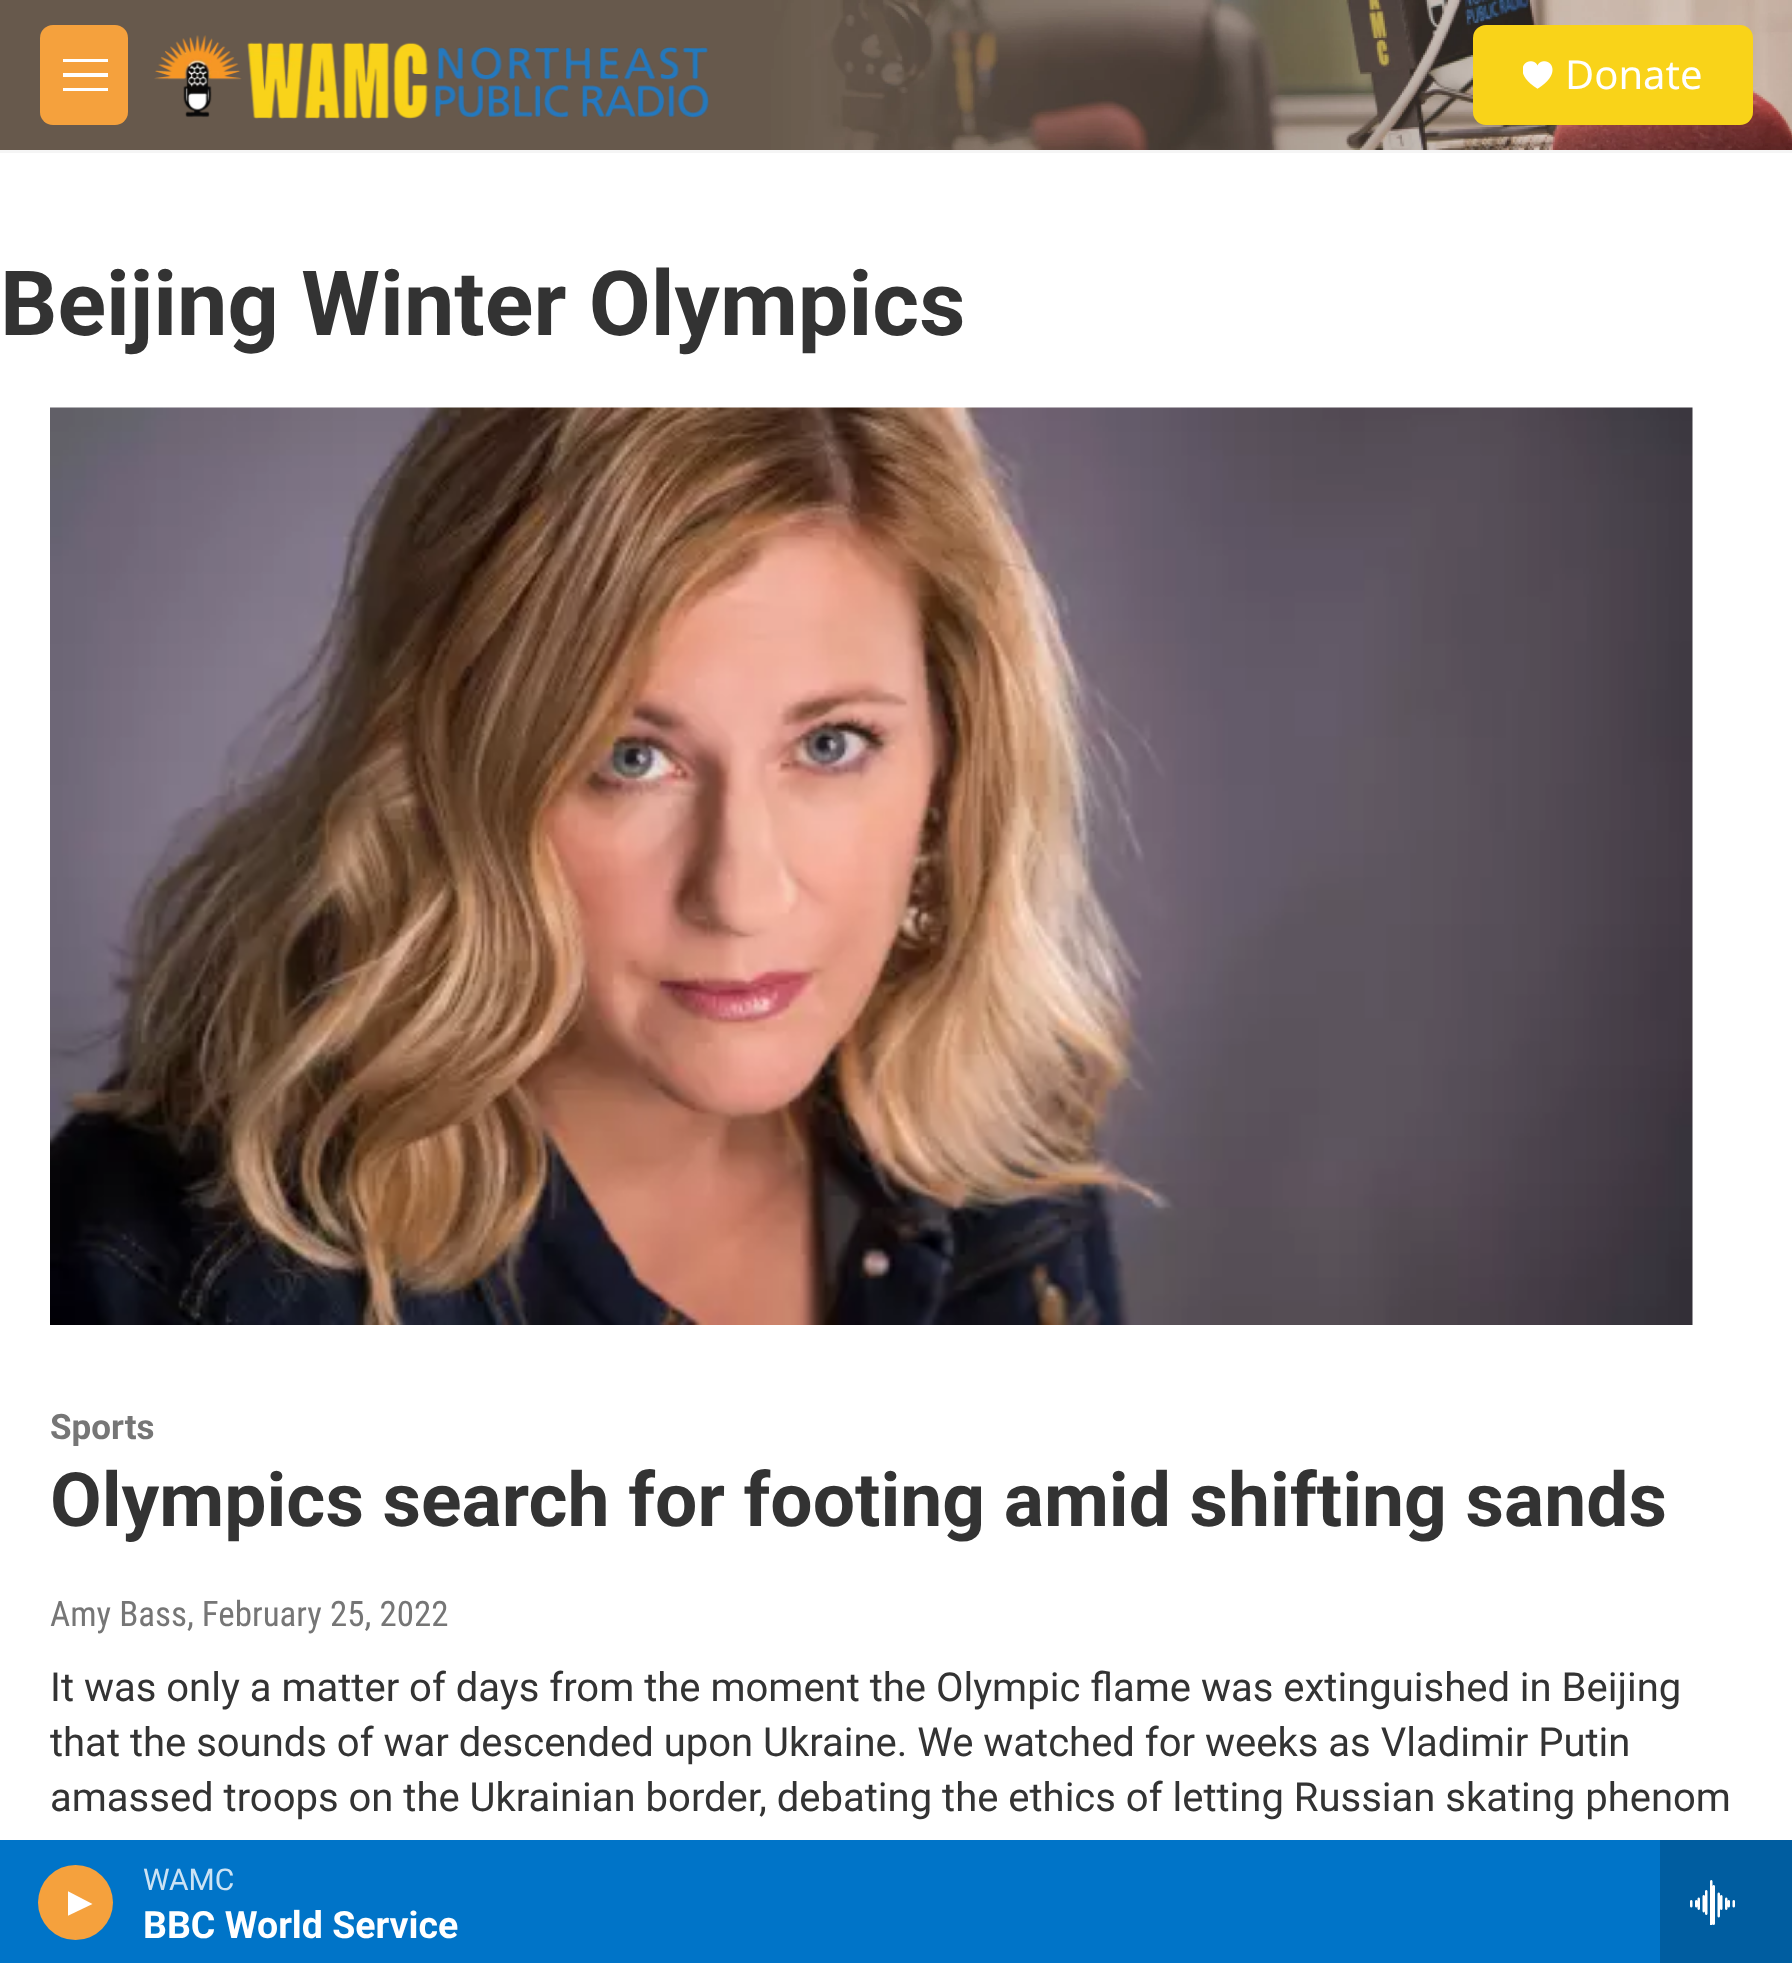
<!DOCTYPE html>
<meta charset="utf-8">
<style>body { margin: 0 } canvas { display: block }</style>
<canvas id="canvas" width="1792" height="1963"></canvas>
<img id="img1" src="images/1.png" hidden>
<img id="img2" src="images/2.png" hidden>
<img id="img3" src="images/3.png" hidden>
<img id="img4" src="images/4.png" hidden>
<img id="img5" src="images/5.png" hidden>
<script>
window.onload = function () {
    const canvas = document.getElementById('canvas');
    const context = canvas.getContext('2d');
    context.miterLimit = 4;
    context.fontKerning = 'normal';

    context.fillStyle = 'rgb(255, 255, 255)';
    context.fillRect(0, 0, 1792, 1963);
    context.fillStyle = 'rgb(245, 245, 245)';
    context.fillRect(0, 150, 1792, 3);
    context.drawImage(document.getElementById('img1'), 0, 0, 1792, 150);
    context.fillStyle = 'rgb(245, 161, 61)';
    context.beginPath();
    context.roundRect(40, 25, 88, 100, 13);
    context.fill();
    context.save();
    context.beginPath();
    context.rect(63, 53, 45, 45);
    context.clip();
    context.fillStyle = 'rgb(255, 255, 255)';
    context.beginPath();
    context.moveTo(62, 77);
    context.lineTo(62, 73);
    context.lineTo(108, 73);
    context.lineTo(108, 77);
    context.closePath();
    context.moveTo(62, 62);
    context.lineTo(62, 59);
    context.lineTo(108, 59);
    context.lineTo(108, 62);
    context.closePath();
    context.moveTo(62, 91);
    context.lineTo(62, 88);
    context.lineTo(108, 88);
    context.lineTo(108, 91);
    context.closePath();
    context.fill('evenodd');
    context.restore();
    context.drawImage(document.getElementById('img2'), 154, 35, 555, 84);
    context.fillStyle = 'rgb(249, 211, 25)';
    context.beginPath();
    context.roundRect(1473, 25, 280, 100, 13);
    context.fill();
    context.drawImage(document.getElementById('img3'), 1523, 61, 30, 28);
    context.fillStyle = 'rgb(0, 116, 200)';
    context.fillRect(0, 1840, 1660, 123);
    context.fillStyle = 'rgb(245, 161, 61)';
    context.beginPath();
    context.arc(75.5, 1902.5, 37.5, 0, 2 * Math.PI);
    context.fill();
    context.save();
    context.beginPath();
    context.rect(68, 1890, 25, 28);
    context.clip();
    context.fillStyle = 'rgb(255, 255, 255)';
    context.beginPath();
    context.moveTo(67.5, 1891);
    context.lineTo(92.5, 1904);
    context.lineTo(67.5, 1916);
    context.closePath();
    context.fill();
    context.restore();
    context.fillStyle = 'rgb(0, 93, 160)';
    context.fillRect(1660, 1840, 132, 123);
    context.drawImage(document.getElementById('img4'), 1690, 1880, 45, 45);
    context.drawImage(document.getElementById('img5'), 50, 407, 1643, 918);
    context.font = '40px Noto Sans';
    context.fillStyle = 'rgb(255, 255, 255)';
    context.fillText('Donate', 1565, 89);
    context.font = '30px Roboto';
    context.fillStyle = 'rgb(204, 227, 244)';
    context.fillText('WAMC', 143, 1890);
    context.font = 'bold 37.5px "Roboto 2"';
    context.fillStyle = 'rgb(255, 255, 255)';
    context.fillText('BBC World Service', 143, 1938);
    context.font = 'bold 90px Roboto';
    context.fillStyle = 'rgb(51, 51, 51)';
    context.fillText('Beijing Winter Olympics', 0, 335);
    context.font = 'bold 35px Roboto';
    context.fillStyle = 'rgb(118, 118, 118)';
    context.fillText('Sports', 50, 1439);
    context.font = 'bold 75px Roboto';
    context.fillStyle = 'rgb(51, 51, 51)';
    context.fillText('Olympics search for footing amid shifting sands', 50, 1526);
    context.font = '35px Roboto Condensed';
    context.fillStyle = 'rgb(118, 118, 118)';
    context.fillText('Amy Bass, February 25, 2022', 50, 1626);
    context.font = '40px Roboto';
    context.fillStyle = 'rgb(51, 51, 51)';
    context.fillText('It was only a matter of days from the moment the Olympic flame was extinguished in Beijing', 50, 1701);
    context.fillText('that the sounds of war descended upon Ukraine. We watched for weeks as Vladimir Putin', 50, 1756);
    context.fillText('amassed troops on the Ukrainian border, debating the ethics of letting Russian skating phenom', 50, 1811);
};
</script>
